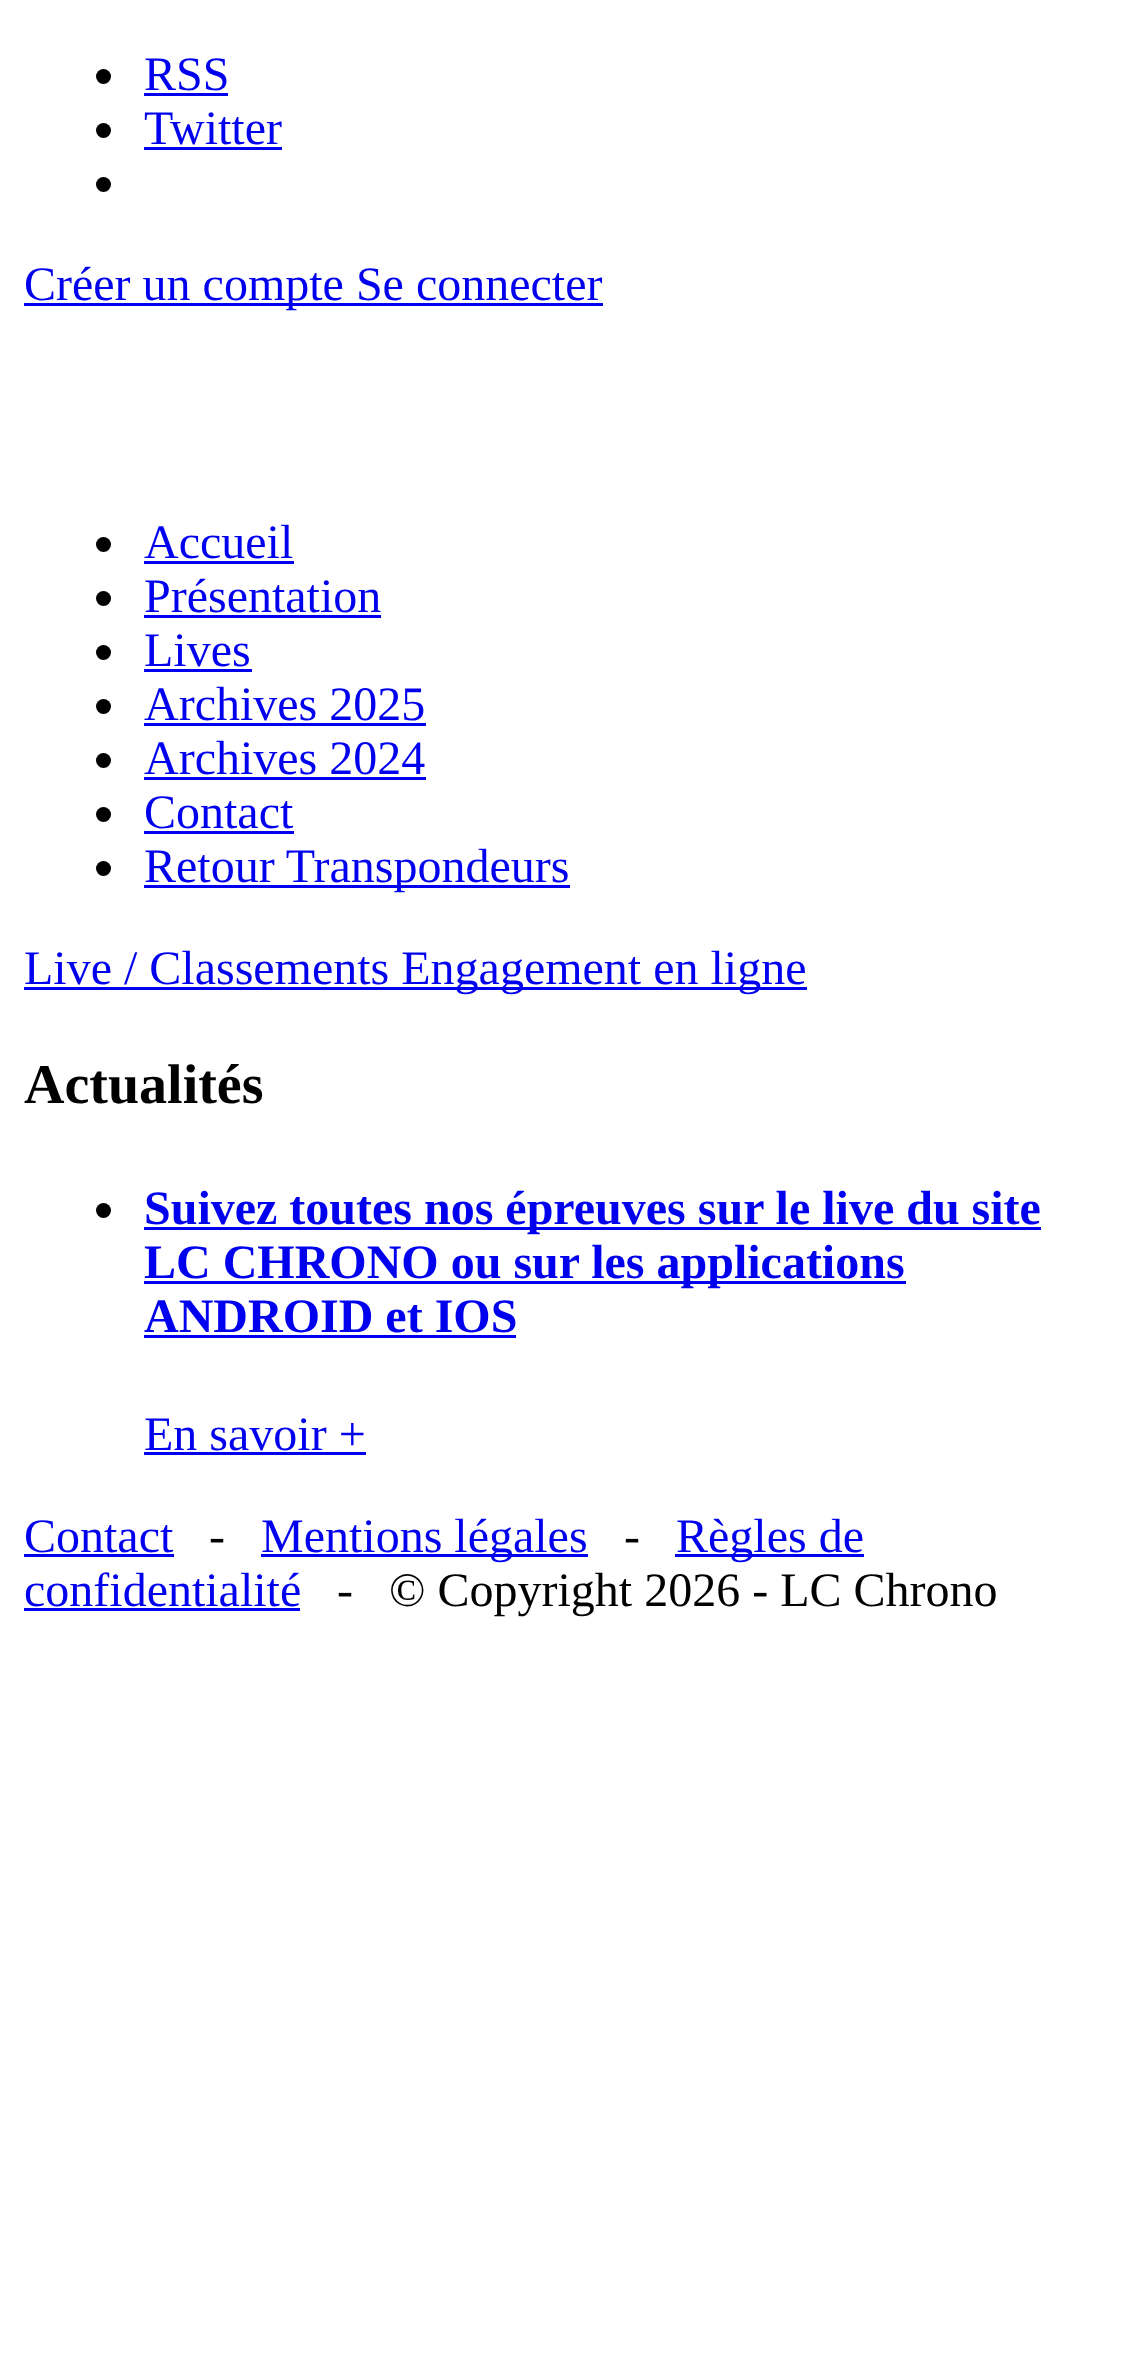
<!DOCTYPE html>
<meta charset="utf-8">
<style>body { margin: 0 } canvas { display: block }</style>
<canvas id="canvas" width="1127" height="2363"></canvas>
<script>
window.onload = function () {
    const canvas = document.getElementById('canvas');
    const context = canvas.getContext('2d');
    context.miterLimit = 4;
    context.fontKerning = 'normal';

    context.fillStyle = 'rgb(255, 255, 255)';
    context.fillRect(0, 0, 1127, 2363);
    context.fillStyle = 'rgb(0, 0, 0)';
    context.beginPath();
    context.arc(103.5, 76.5, 7.5, 0, 2 * Math.PI);
    context.fill();
    context.fillStyle = 'rgb(0, 0, 238)';
    context.fillRect(144, 93, 84, 3);
    context.fillStyle = 'rgb(0, 0, 0)';
    context.beginPath();
    context.arc(103.5, 130.5, 7.5, 0, 2 * Math.PI);
    context.fill();
    context.fillStyle = 'rgb(0, 0, 238)';
    context.fillRect(144, 147, 138, 3);
    context.fillStyle = 'rgb(0, 0, 0)';
    context.beginPath();
    context.arc(103.5, 184.5, 7.5, 0, 2 * Math.PI);
    context.fill();
    context.fillStyle = 'rgb(0, 0, 238)';
    context.fillRect(24, 303, 579, 3);
    context.fillStyle = 'rgb(0, 0, 0)';
    context.beginPath();
    context.arc(103.5, 544.5, 7.5, 0, 2 * Math.PI);
    context.fill();
    context.fillStyle = 'rgb(0, 0, 238)';
    context.fillRect(144, 561, 150, 3);
    context.fillStyle = 'rgb(0, 0, 0)';
    context.beginPath();
    context.arc(103.5, 598.5, 7.5, 0, 2 * Math.PI);
    context.fill();
    context.fillStyle = 'rgb(0, 0, 238)';
    context.fillRect(144, 615, 237, 3);
    context.fillStyle = 'rgb(0, 0, 0)';
    context.beginPath();
    context.arc(103.5, 652.5, 7.5, 0, 2 * Math.PI);
    context.fill();
    context.fillStyle = 'rgb(0, 0, 238)';
    context.fillRect(144, 669, 108, 3);
    context.fillStyle = 'rgb(0, 0, 0)';
    context.beginPath();
    context.arc(103.5, 706.5, 7.5, 0, 2 * Math.PI);
    context.fill();
    context.fillStyle = 'rgb(0, 0, 238)';
    context.fillRect(144, 723, 282, 3);
    context.fillStyle = 'rgb(0, 0, 0)';
    context.beginPath();
    context.arc(103.5, 760.5, 7.5, 0, 2 * Math.PI);
    context.fill();
    context.fillStyle = 'rgb(0, 0, 238)';
    context.fillRect(144, 777, 282, 3);
    context.fillStyle = 'rgb(0, 0, 0)';
    context.beginPath();
    context.arc(103.5, 814.5, 7.5, 0, 2 * Math.PI);
    context.fill();
    context.fillStyle = 'rgb(0, 0, 238)';
    context.fillRect(144, 831, 150, 3);
    context.fillStyle = 'rgb(0, 0, 0)';
    context.beginPath();
    context.arc(103.5, 868.5, 7.5, 0, 2 * Math.PI);
    context.fill();
    context.fillStyle = 'rgb(0, 0, 238)';
    context.fillRect(144, 885, 426, 3);
    context.fillRect(24, 987, 783, 3);
    context.fillStyle = 'rgb(0, 0, 0)';
    context.beginPath();
    context.arc(103.5, 1210.5, 7.5, 0, 2 * Math.PI);
    context.fill();
    context.fillStyle = 'rgb(0, 0, 238)';
    context.fillRect(144, 1227, 897, 3);
    context.fillRect(144, 1281, 762, 3);
    context.fillRect(144, 1335, 372, 3);
    context.fillRect(144, 1452, 222, 3);
    context.fillRect(24, 1554, 150, 3);
    context.fillRect(261, 1554, 327, 3);
    context.fillRect(675, 1554, 189, 3);
    context.fillRect(24, 1608, 276, 3);
    context.font = '48px Liberation Serif';
    context.fillText('RSS', 144, 90);
    context.fillText('Twitter', 144, 144);
    context.fillText('Créer un compte Se connecter', 24, 300);
    context.fillText('Accueil', 144, 558);
    context.fillText('Présentation', 144, 612);
    context.fillText('Lives', 144, 666);
    context.fillText('Archives 2025', 144, 720);
    context.fillText('Archives 2024', 144, 774);
    context.fillText('Contact', 144, 828);
    context.fillText('Retour Transpondeurs', 144, 882);
    context.fillText('Live / Classements Engagement en ligne', 24, 984);
    context.font = 'bold 56px Liberation Serif';
    context.fillStyle = 'rgb(0, 0, 0)';
    context.fillText('Actualités', 24, 1103);
    context.font = 'bold 48px Liberation Serif';
    context.fillStyle = 'rgb(0, 0, 238)';
    context.fillText('Suivez toutes nos épreuves sur le live du site', 144, 1224);
    context.fillText('LC CHRONO ou sur les applications', 144, 1278);
    context.fillText('ANDROID et IOS', 144, 1332);
    context.font = '48px Liberation Serif';
    context.fillText('En savoir +', 144, 1450);
    context.fillText('Contact', 24, 1552);
    context.fillStyle = 'rgb(0, 0, 0)';
    context.fillText('-', 209, 1552);
    context.fillStyle = 'rgb(0, 0, 238)';
    context.fillText('Mentions légales', 261, 1552);
    context.fillStyle = 'rgb(0, 0, 0)';
    context.fillText('-', 624, 1552);
    context.fillStyle = 'rgb(0, 0, 238)';
    context.fillText('Règles de', 676, 1552);
    context.fillText('confidentialité', 24, 1606);
    context.fillStyle = 'rgb(0, 0, 0)';
    context.fillText('-', 337, 1606);
    context.fillText('© Copyright 2026 - LC Chrono', 389, 1606);
};
</script>
